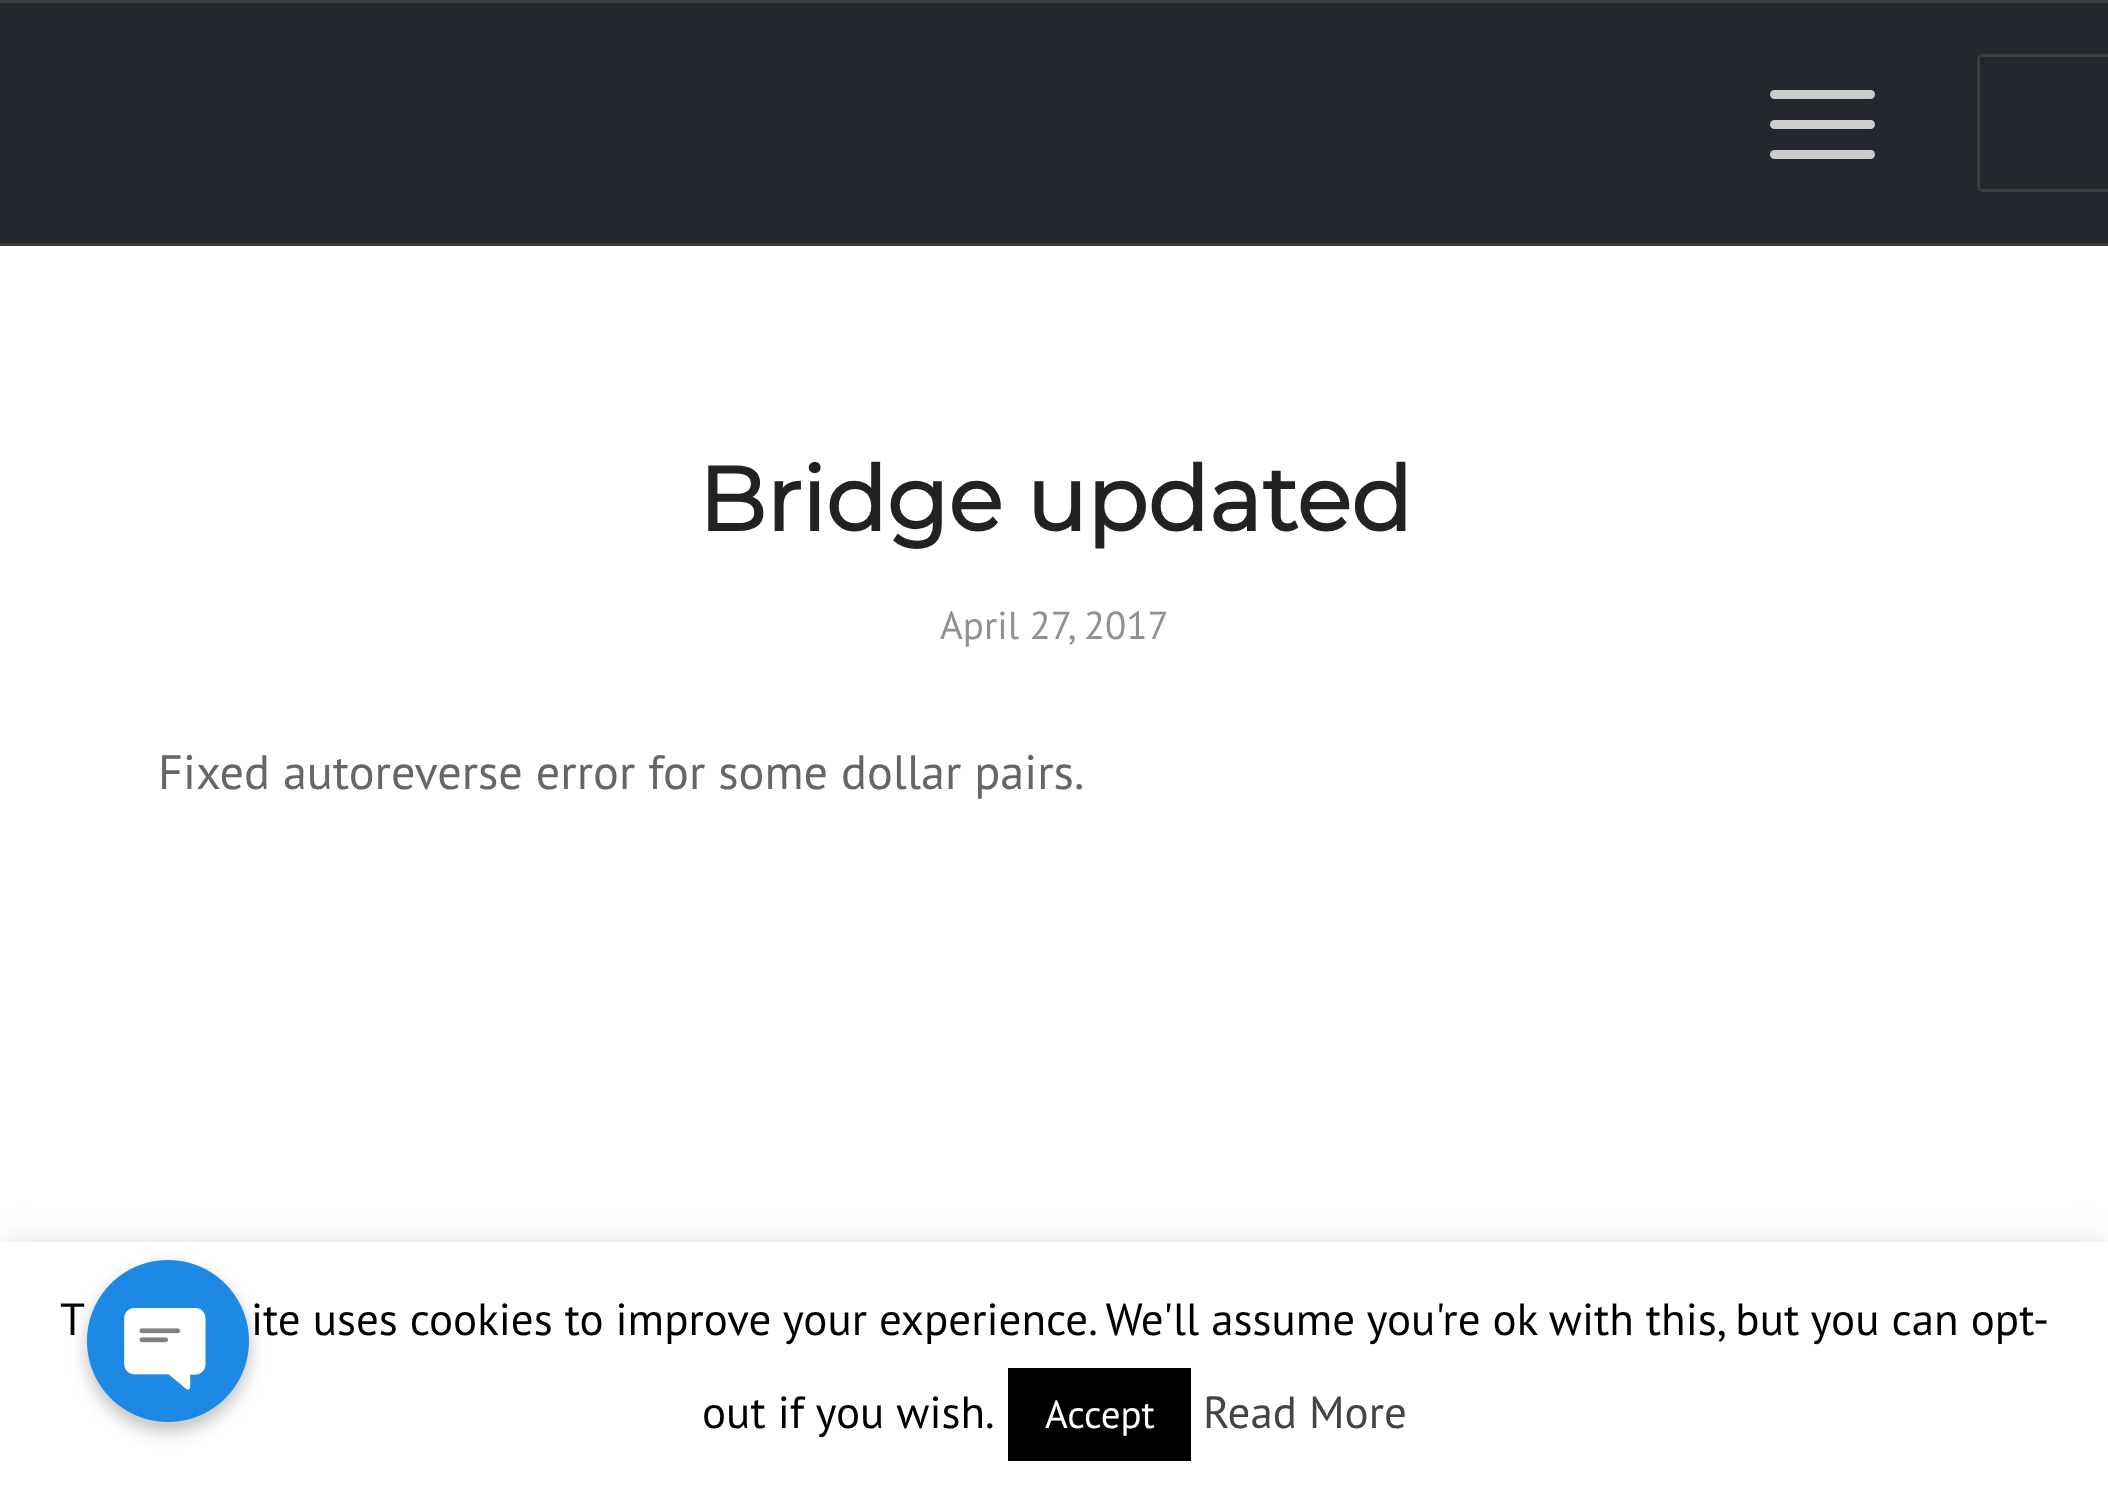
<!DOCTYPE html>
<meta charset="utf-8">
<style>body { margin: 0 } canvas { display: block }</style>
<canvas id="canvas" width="2108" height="1496"></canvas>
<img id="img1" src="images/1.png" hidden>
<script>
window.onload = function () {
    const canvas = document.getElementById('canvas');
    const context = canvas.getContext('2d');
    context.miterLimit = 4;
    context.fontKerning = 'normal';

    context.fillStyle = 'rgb(255, 255, 255)';
    context.fillRect(0, 0, 2108, 1496);
    context.fillStyle = 'rgb(61, 61, 61)';
    context.fillRect(0, 0, 2108, 3);
    context.fillRect(0, 243, 2108, 3);
    context.fillStyle = 'rgb(36, 39, 45)';
    context.fillRect(0, 3, 2108, 240);
    context.fillStyle = 'rgb(204, 204, 204)';
    context.beginPath();
    context.roundRect(1770, 120, 105, 9, 4.5);
    context.fill();
    context.beginPath();
    context.roundRect(1770, 90, 105, 9, 4.5);
    context.fill();
    context.beginPath();
    context.roundRect(1770, 150, 105, 9, 4.5);
    context.fill();
    context.beginPath();
    context.roundRect(1978.5, 55.5, 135, 135, 4.5);
    context.strokeStyle = 'rgb(61, 61, 61)';
    context.lineWidth = 3;
    context.stroke();
    context.fillStyle = 'rgb(36, 39, 45)';
    context.fillRect(1980, 57, 2, 132);
    context.fillStyle = 'rgba(172, 171, 171, 0.3)';
    context.filter = 'blur(15px)';
    context.beginPath();
    context.rect(0, 1239, 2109, 255);
    context.fill();
    context.filter = 'none';
    context.fillStyle = 'rgb(255, 255, 255)';
    context.fillRect(0, 1242, 2108, 254);
    context.fillStyle = 'rgba(0, 0, 0, 0.25)';
    context.filter = 'blur(9px)';
    context.beginPath();
    context.roundRect(87, 1269, 162, 162, 81);
    context.fill();
    context.filter = 'none';
    context.drawImage(document.getElementById('img1'), 87, 1260, 162, 162);
    context.fillStyle = 'rgb(0, 0, 0)';
    context.fillRect(1008, 1368, 183, 93);
    context.font = 'bold 90px Montserrat';
    context.fillStyle = 'rgb(34, 34, 34)';
    context.fillText('Bridge updated', 698, 531);
    context.font = '39px PT Sans';
    context.fillStyle = 'rgb(145, 145, 145)';
    context.fillText('April 27, 2017', 940, 639);
    context.font = '48.25px PT Sans';
    context.fillStyle = 'rgb(102, 102, 102)';
    context.fillText('Fixed autoreverse error for some dollar pairs.', 158, 789);
    context.font = '45px PT Sans';
    context.fillStyle = 'rgb(0, 0, 0)';
    context.fillText('T', 60, 1335);
    context.fillText('ite uses cookies to improve your experience. We\'ll assume you\'re ok with this, but you can opt-', 251, 1335);
    context.fillText('out if you wish.', 702, 1428);
    context.font = '39px PT Sans';
    context.fillStyle = 'rgb(255, 255, 255)';
    context.fillText('Accept', 1045, 1428);
    context.font = '45px PT Sans';
    context.fillStyle = 'rgb(68, 68, 68)';
    context.fillText('Read More', 1203, 1428);
};
</script>
